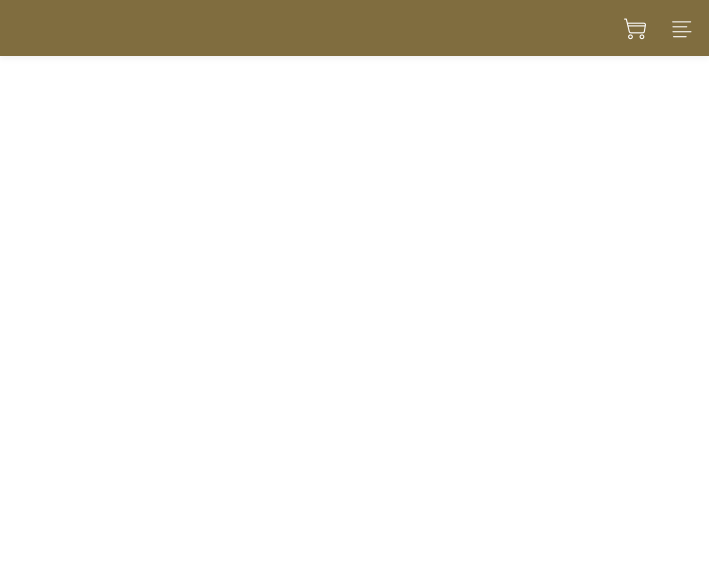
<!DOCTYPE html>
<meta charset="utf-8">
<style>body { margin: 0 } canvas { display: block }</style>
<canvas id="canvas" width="709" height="588"></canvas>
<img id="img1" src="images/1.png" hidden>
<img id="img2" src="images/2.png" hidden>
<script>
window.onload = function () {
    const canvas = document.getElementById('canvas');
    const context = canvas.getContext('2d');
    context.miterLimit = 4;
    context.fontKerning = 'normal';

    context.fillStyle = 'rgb(255, 255, 255)';
    context.fillRect(0, 0, 709, 588);
    context.fillStyle = 'rgba(0, 0, 0, 0.06)';
    context.filter = 'blur(3px)';
    context.beginPath();
    context.rect(0, 2, 709, 56);
    context.fill();
    context.filter = 'none';
    context.fillStyle = 'rgb(128, 109, 63)';
    context.fillRect(0, 0, 709, 56);
    context.drawImage(document.getElementById('img1'), 624, 18, 22, 22);
    context.drawImage(document.getElementById('img2'), 672, 21, 20, 17);
};
</script>
